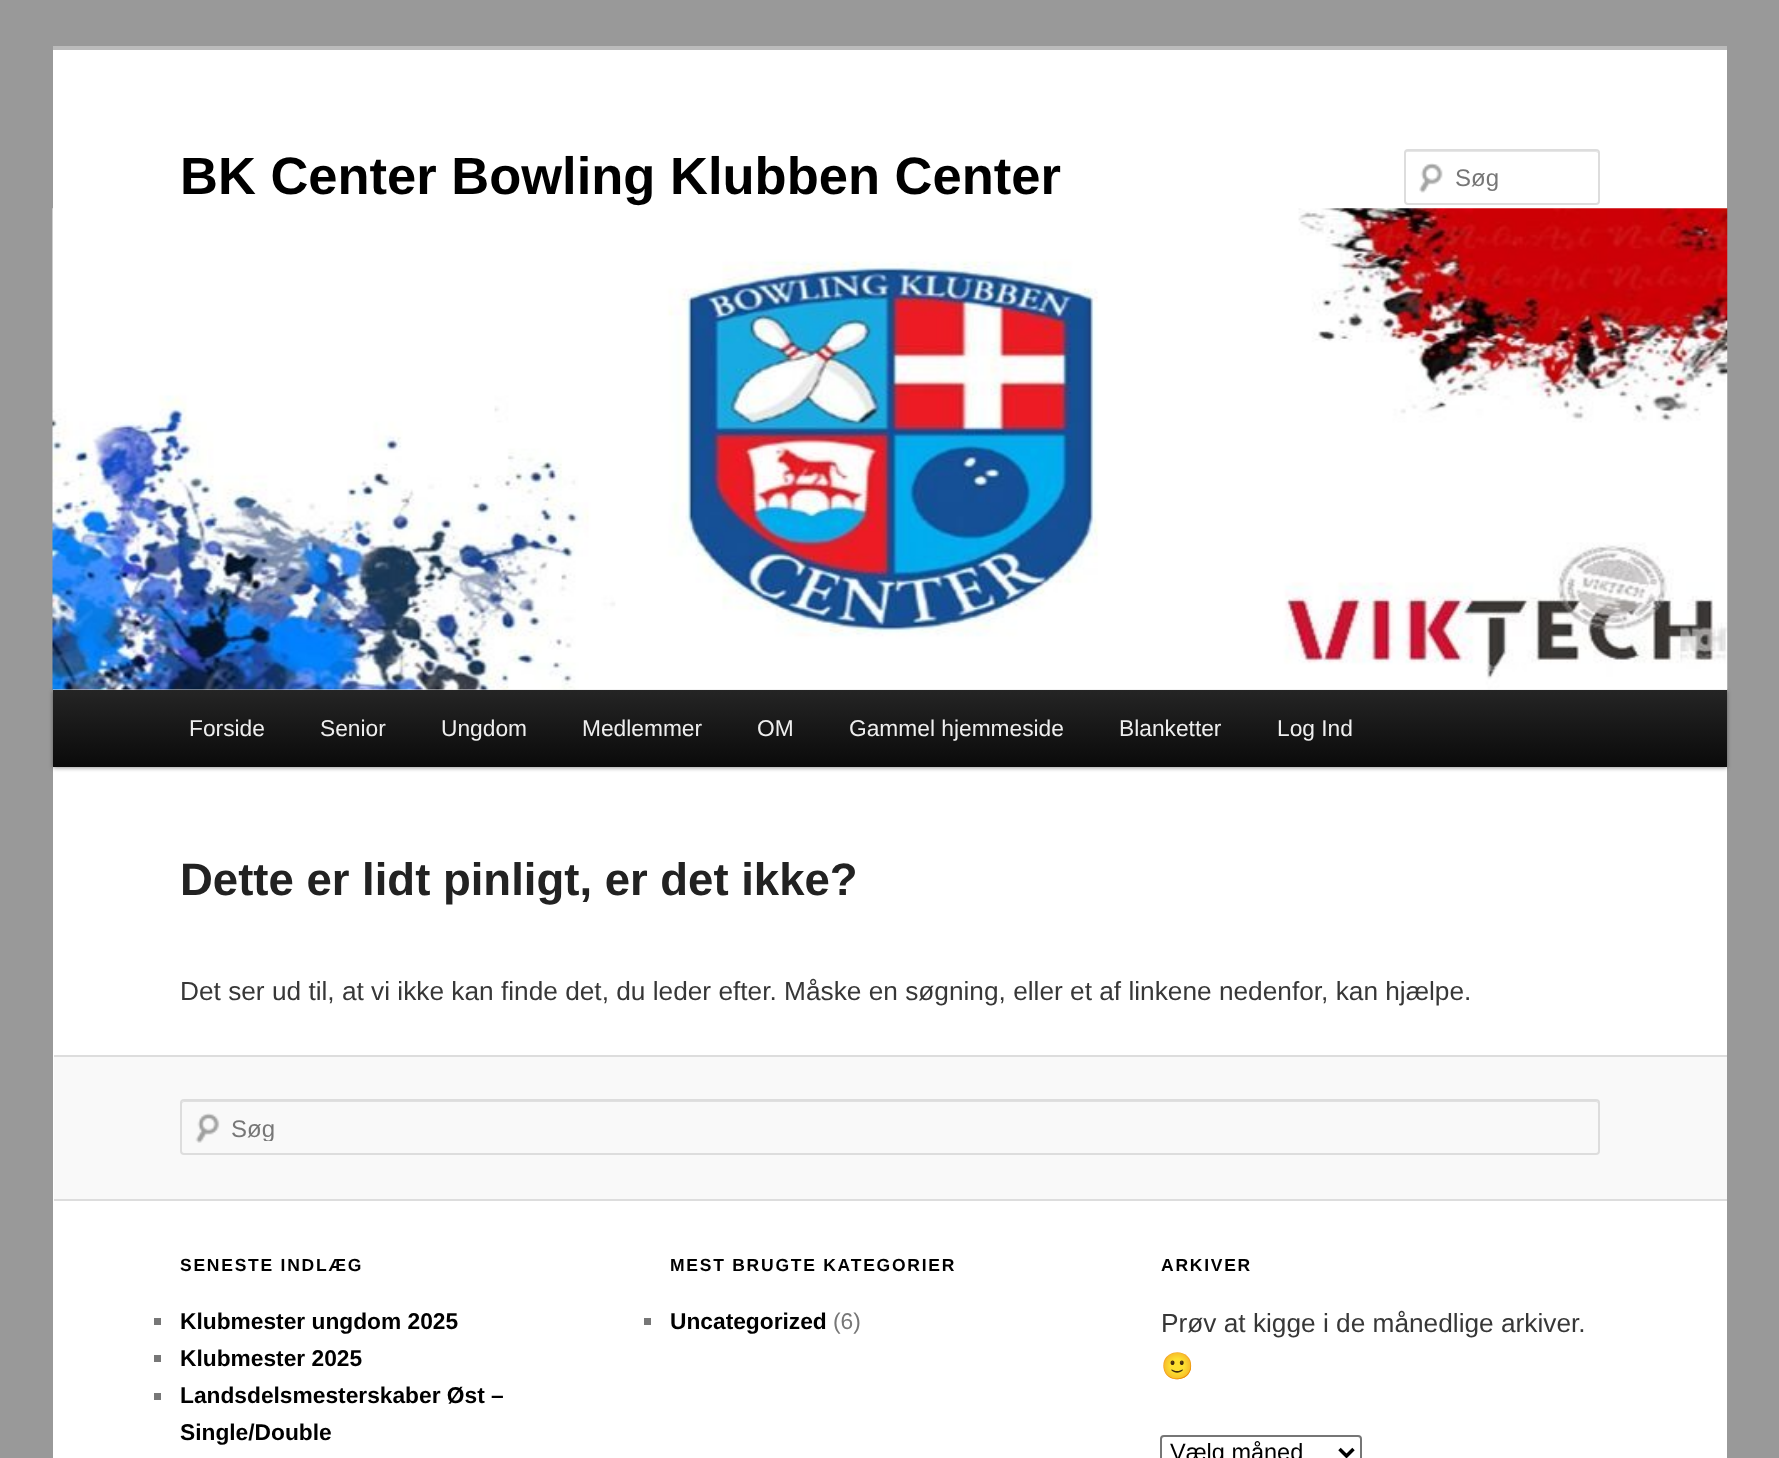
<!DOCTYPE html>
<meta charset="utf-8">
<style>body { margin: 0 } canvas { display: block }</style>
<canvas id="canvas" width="1779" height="1458"></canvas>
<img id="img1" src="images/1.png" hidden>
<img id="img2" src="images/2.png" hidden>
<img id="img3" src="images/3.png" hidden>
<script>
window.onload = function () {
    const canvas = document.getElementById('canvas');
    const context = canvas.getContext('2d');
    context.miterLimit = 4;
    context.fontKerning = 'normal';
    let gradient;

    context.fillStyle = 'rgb(153, 153, 153)';
    context.fillRect(0, 0, 1779, 1458);
    context.fillStyle = 'rgb(255, 255, 255)';
    context.fillRect(53, 50, 1674, 1408);
    context.fillStyle = 'rgb(187, 187, 187)';
    context.fillRect(53, 46, 1674, 4);
    context.drawImage(document.getElementById('img1'), 1419, 163, 24, 30);
    context.fillStyle = 'rgb(230, 230, 230)';
    context.beginPath();
    context.moveTo(1407, 152);
    context.lineTo(1596, 152);
    context.lineTo(1598, 153);
    context.lineTo(1598, 154);
    context.lineTo(1598, 153);
    context.bezierCurveTo(1598, 152, 1597, 151, 1596, 151);
    context.lineTo(1407, 151);
    context.bezierCurveTo(1406, 151, 1405, 152, 1405, 153);
    context.lineTo(1405, 154);
    context.bezierCurveTo(1405, 153, 1406, 152, 1407, 152);
    context.closePath();
    context.fill();
    context.beginPath();
    context.roundRect(1405, 150, 194, 54, 3);
    context.strokeStyle = 'rgb(221, 221, 221)';
    context.lineWidth = 2;
    context.stroke();
    context.fillStyle = 'rgba(0, 0, 0, 0.4)';
    context.filter = 'blur(2px)';
    context.beginPath();
    context.rect(53, 691, 1674, 77);
    context.fill();
    context.filter = 'none';
    context.drawImage(document.getElementById('img2'), 52, 208, 1676, 482);
    gradient = context.createLinearGradient(890, 689, 890, 767);
    gradient.addColorStop(0, 'rgb(37, 37, 37)');
    gradient.addColorStop(1, 'rgb(10, 10, 10)');
    context.fillStyle = gradient;
    context.fillRect(53, 690, 1674, 77);
    context.fillStyle = 'rgb(249, 249, 249)';
    context.fillRect(54, 1057, 1673, 142);
    context.fillStyle = 'rgb(221, 221, 221)';
    context.fillRect(54, 1055, 1673, 2);
    context.fillRect(54, 1199, 1673, 2);
    context.drawImage(document.getElementById('img3'), 195, 1113, 25, 30);
    context.fillStyle = 'rgb(224, 224, 224)';
    context.beginPath();
    context.moveTo(184, 1102);
    context.lineTo(1596, 1102);
    context.bezierCurveTo(1597, 1102, 1598, 1103, 1598, 1104);
    context.lineTo(1598, 1103);
    context.bezierCurveTo(1598, 1102, 1597, 1101, 1596, 1101);
    context.lineTo(184, 1101);
    context.bezierCurveTo(183, 1101, 182, 1102, 182, 1103);
    context.lineTo(182, 1104);
    context.bezierCurveTo(182, 1103, 183, 1102, 184, 1102);
    context.closePath();
    context.fill();
    context.beginPath();
    context.roundRect(181, 1100, 1418, 54, 3);
    context.stroke();
    context.fillStyle = 'rgb(119, 119, 119)';
    context.fillRect(154, 1318, 7, 7);
    context.fillRect(154, 1355, 7, 7);
    context.fillRect(154, 1393, 7, 7);
    context.fillRect(644, 1318, 7, 7);
    context.beginPath();
    context.roundRect(1161, 1436, 200, 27, 3);
    context.strokeStyle = 'rgb(118, 118, 118)';
    context.stroke();
    context.beginPath();
    context.moveTo(1339.5, 1449);
    context.lineTo(1346.5, 1456);
    context.lineTo(1353.5, 1449);
    context.strokeStyle = 'rgb(0, 0, 0)';
    context.lineWidth = 3.5;
    context.stroke();
    context.font = 'bold 52.5px Liberation Sans';
    context.fillStyle = 'rgb(0, 0, 0)';
    context.fillText('BK Center Bowling Klubben Center', 180, 194);
    context.font = '24px Liberation Sans';
    context.fillStyle = 'rgb(119, 119, 119)';
    context.fillText('Søg', 1455, 186);
    context.font = '22.75px Liberation Sans';
    context.fillStyle = 'rgb(238, 238, 238)';
    context.fillText('Forside', 189, 736);
    context.fillText('Senior', 320, 736);
    context.fillText('Ungdom', 441, 736);
    context.fillText('Medlemmer', 582, 736);
    context.fillText('OM', 757, 736);
    context.fillText('Gammel hjemmeside', 849, 736);
    context.fillText('Blanketter', 1119, 736);
    context.fillText('Log Ind', 1277, 736);
    context.font = 'bold 45.5px Liberation Sans';
    context.fillStyle = 'rgb(34, 34, 34)';
    context.fillText('Dette er lidt pinligt, er det ikke?', 180, 895);
    context.font = '26.25px Liberation Sans';
    context.fillStyle = 'rgb(55, 55, 55)';
    context.fillText('Det ser ud til, at vi ikke kan finde det, du leder efter. Måske en søgning, eller et af linkene nedenfor, kan hjælpe.', 180, 1000);
    context.save();
    context.beginPath();
    context.rect(231, 1113, 1349, 28);
    context.clip();
    context.font = '24px Liberation Sans';
    context.fillStyle = 'rgb(119, 119, 119)';
    context.fillText('Søg', 231, 1137);
    context.restore();
    context.letterSpacing = '1.75px';
    context.font = 'bold 17.5px Liberation Sans';
    context.fillStyle = 'rgb(0, 0, 0)';
    context.fillText('SENESTE INDLÆG', 180, 1271);
    context.letterSpacing = '0px';
    context.font = 'bold 22.75px Liberation Sans';
    context.fillText('Klubmester ungdom 2025', 180, 1329);
    context.fillText('Klubmester 2025', 180, 1366);
    context.fillText('Landsdelsmesterskaber Øst –', 180, 1403);
    context.fillText('Single/Double', 180, 1440);
    context.letterSpacing = '1.75px';
    context.font = 'bold 17.5px Liberation Sans';
    context.fillText('MEST BRUGTE KATEGORIER', 670, 1271);
    context.letterSpacing = '0px';
    context.font = 'bold 22.75px Liberation Sans';
    context.fillText('Uncategorized', 670, 1329);
    context.font = '22.75px Liberation Sans';
    context.fillStyle = 'rgb(119, 119, 119)';
    context.fillText('(6)', 833, 1329);
    context.letterSpacing = '1.75px';
    context.font = 'bold 17.5px Liberation Sans';
    context.fillStyle = 'rgb(0, 0, 0)';
    context.fillText('ARKIVER', 1161, 1271);
    context.letterSpacing = '0px';
    context.font = '26.25px Liberation Sans';
    context.fillStyle = 'rgb(55, 55, 55)';
    context.fillText('Prøv at kigge i de månedlige arkiver.', 1161, 1332);
    context.font = '26.25px Noto Color Emoji';
    context.fillText('🙂', 1161, 1375);
    context.font = '23.5px Liberation Sans';
    context.fillStyle = 'rgb(0, 0, 0)';
    context.fillText('Vælg måned', 1170, 1460);
};
</script>
